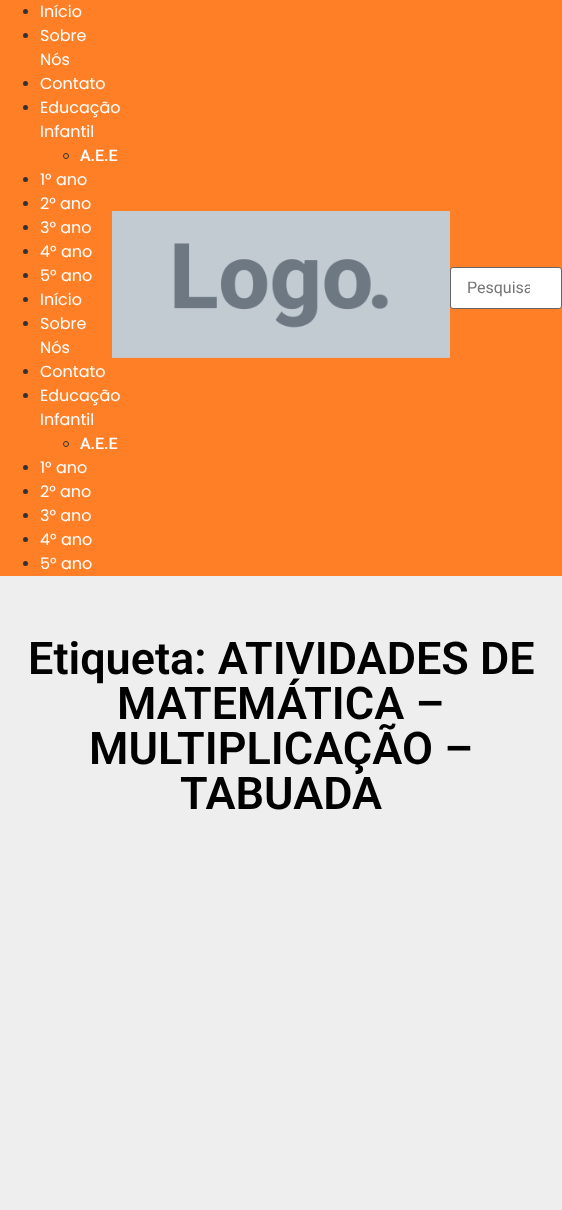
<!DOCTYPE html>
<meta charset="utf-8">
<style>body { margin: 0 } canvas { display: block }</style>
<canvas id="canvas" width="562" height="1210"></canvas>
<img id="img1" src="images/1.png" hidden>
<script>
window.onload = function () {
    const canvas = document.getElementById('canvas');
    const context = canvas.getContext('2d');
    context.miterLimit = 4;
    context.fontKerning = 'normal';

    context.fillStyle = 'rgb(255, 127, 39)';
    context.fillRect(0, 0, 562, 1210);
    context.fillStyle = 'rgb(51, 51, 51)';
    context.beginPath();
    context.arc(25.5, 11.5, 2.5, 0, 2 * Math.PI);
    context.fill();
    context.beginPath();
    context.arc(25.5, 35.5, 2.5, 0, 2 * Math.PI);
    context.fill();
    context.beginPath();
    context.arc(25.5, 83.5, 2.5, 0, 2 * Math.PI);
    context.fill();
    context.beginPath();
    context.arc(25.5, 107.5, 2.5, 0, 2 * Math.PI);
    context.fill();
    context.beginPath();
    context.arc(66, 156, 2.5, 0, 2 * Math.PI);
    context.strokeStyle = 'rgb(51, 51, 51)';
    context.stroke();
    context.beginPath();
    context.arc(25.5, 179.5, 2.5, 0, 2 * Math.PI);
    context.fill();
    context.beginPath();
    context.arc(25.5, 203.5, 2.5, 0, 2 * Math.PI);
    context.fill();
    context.beginPath();
    context.arc(25.5, 227.5, 2.5, 0, 2 * Math.PI);
    context.fill();
    context.beginPath();
    context.arc(25.5, 251.5, 2.5, 0, 2 * Math.PI);
    context.fill();
    context.beginPath();
    context.arc(25.5, 275.5, 2.5, 0, 2 * Math.PI);
    context.fill();
    context.beginPath();
    context.arc(25.5, 299.5, 2.5, 0, 2 * Math.PI);
    context.fill();
    context.beginPath();
    context.arc(25.5, 323.5, 2.5, 0, 2 * Math.PI);
    context.fill();
    context.beginPath();
    context.arc(25.5, 371.5, 2.5, 0, 2 * Math.PI);
    context.fill();
    context.beginPath();
    context.arc(25.5, 395.5, 2.5, 0, 2 * Math.PI);
    context.fill();
    context.beginPath();
    context.arc(66, 444, 2.5, 0, 2 * Math.PI);
    context.stroke();
    context.beginPath();
    context.arc(25.5, 467.5, 2.5, 0, 2 * Math.PI);
    context.fill();
    context.beginPath();
    context.arc(25.5, 491.5, 2.5, 0, 2 * Math.PI);
    context.fill();
    context.beginPath();
    context.arc(25.5, 515.5, 2.5, 0, 2 * Math.PI);
    context.fill();
    context.beginPath();
    context.arc(25.5, 539.5, 2.5, 0, 2 * Math.PI);
    context.fill();
    context.beginPath();
    context.arc(25.5, 563.5, 2.5, 0, 2 * Math.PI);
    context.fill();
    context.drawImage(document.getElementById('img1'), 112, 211, 338, 147);
    context.fillStyle = 'rgb(255, 255, 255)';
    context.beginPath();
    context.roundRect(450.5, 267.5, 111, 41, 2.5);
    context.fill();
    context.strokeStyle = 'rgb(102, 102, 102)';
    context.stroke();
    context.fillStyle = 'rgb(238, 238, 238)';
    context.fillRect(0, 576, 562, 634);
    context.font = '16px Poppins';
    context.fillStyle = 'rgb(255, 255, 255)';
    context.fillText('Início', 40, 17);
    context.fillText('Sobre', 40, 41);
    context.fillText('Nós', 40, 65);
    context.fillText('Contato', 40, 89);
    context.fillText('Educação', 40, 113);
    context.fillText('Infantil', 40, 137);
    context.font = '500 16px Roboto';
    context.fillText('A.E.E', 80, 161);
    context.font = '16px Poppins';
    context.fillText('1° ano', 40, 185);
    context.fillText('2° ano', 40, 209);
    context.fillText('3° ano', 40, 233);
    context.fillText('4° ano', 40, 257);
    context.fillText('5° ano', 40, 281);
    context.fillText('Início', 40, 305);
    context.fillText('Sobre', 40, 329);
    context.fillText('Nós', 40, 353);
    context.fillText('Contato', 40, 377);
    context.fillText('Educação', 40, 401);
    context.fillText('Infantil', 40, 425);
    context.font = '500 16px Roboto';
    context.fillText('A.E.E', 80, 449);
    context.font = '16px Poppins';
    context.fillText('1° ano', 40, 473);
    context.fillText('2° ano', 40, 497);
    context.fillText('3° ano', 40, 521);
    context.fillText('4° ano', 40, 545);
    context.fillText('5° ano', 40, 569);
    context.save();
    context.beginPath();
    context.rect(467, 278, 63, 19);
    context.clip();
    context.font = '16px Roboto';
    context.fillStyle = 'rgb(117, 117, 117)';
    context.fillText('Pesquisa', 467, 293);
    context.restore();
    context.font = '600 45px Roboto';
    context.fillStyle = 'rgb(0, 0, 0)';
    context.fillText('Etiqueta: ATIVIDADES DE', 28, 674);
    context.fillText('MATEMÁTICA –', 117, 719);
    context.fillText('MULTIPLICAÇÃO –', 89, 764);
    context.fillText('TABUADA', 180, 809);
};
</script>
